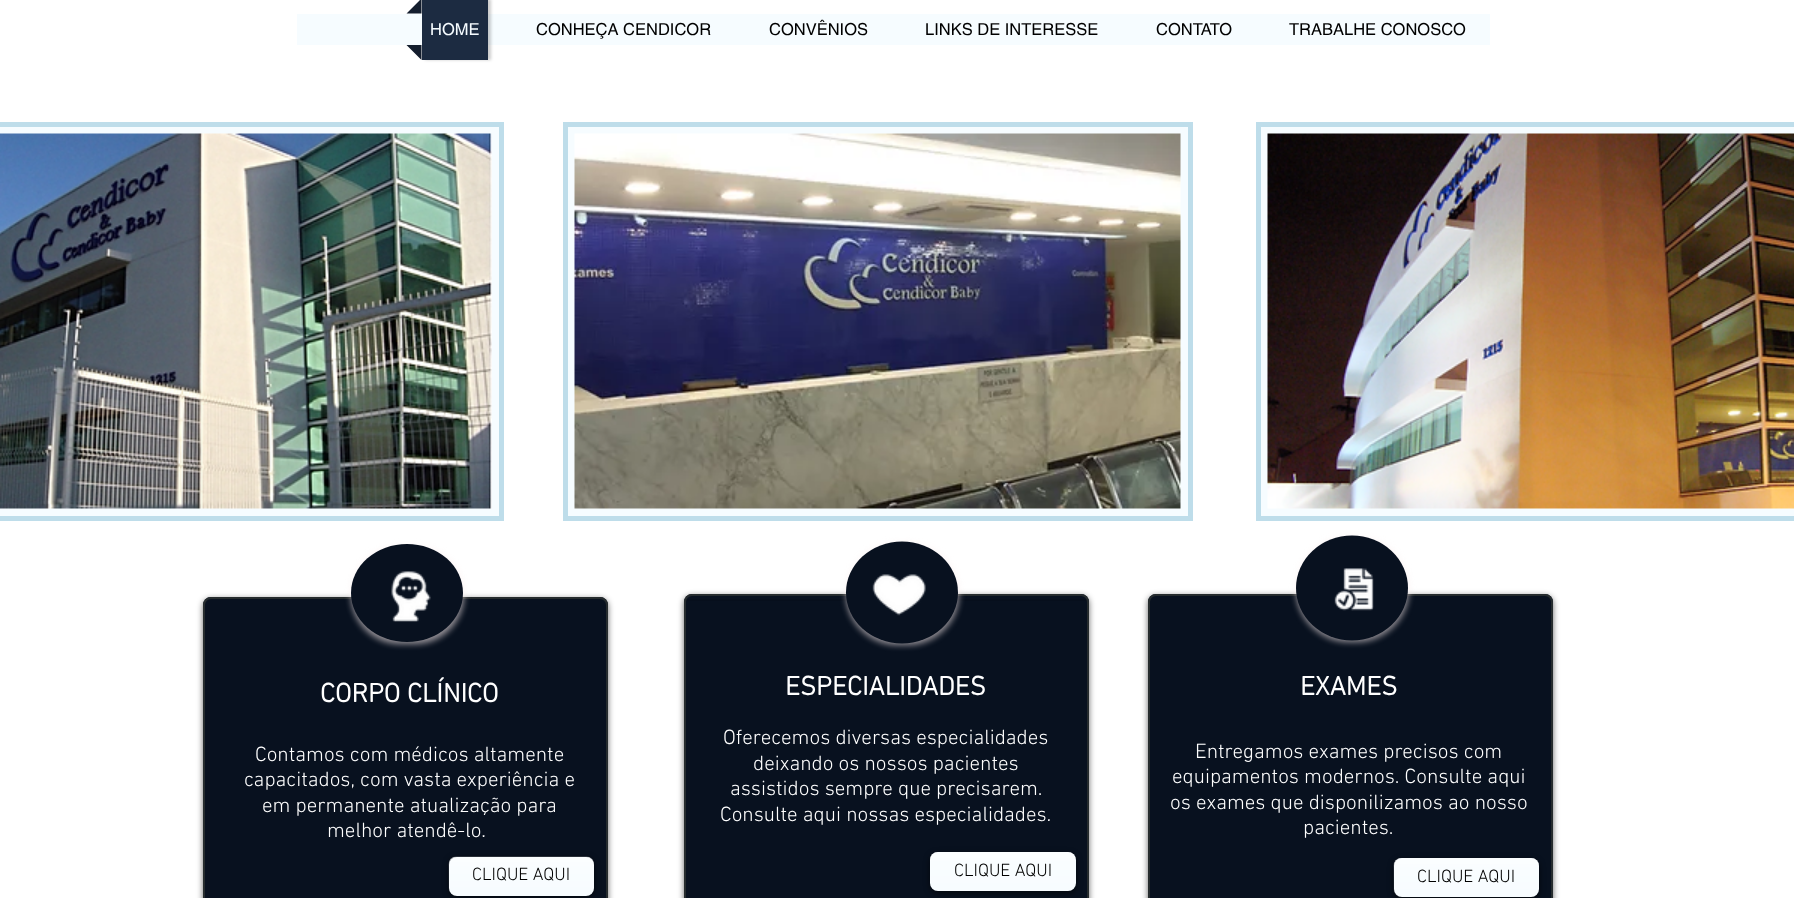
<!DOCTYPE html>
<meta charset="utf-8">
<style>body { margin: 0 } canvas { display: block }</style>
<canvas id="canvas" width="1794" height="898"></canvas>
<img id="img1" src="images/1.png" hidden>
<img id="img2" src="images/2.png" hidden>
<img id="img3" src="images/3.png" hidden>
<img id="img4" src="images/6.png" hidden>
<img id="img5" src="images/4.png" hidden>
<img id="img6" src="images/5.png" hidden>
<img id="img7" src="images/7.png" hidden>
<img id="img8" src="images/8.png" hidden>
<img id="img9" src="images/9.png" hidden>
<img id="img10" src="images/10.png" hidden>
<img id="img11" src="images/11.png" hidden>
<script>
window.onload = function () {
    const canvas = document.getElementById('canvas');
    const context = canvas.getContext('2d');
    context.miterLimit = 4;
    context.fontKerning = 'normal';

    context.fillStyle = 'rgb(255, 255, 255)';
    context.fillRect(0, 0, 1794, 898);
    context.fillStyle = 'rgb(246, 252, 255)';
    context.fillRect(297, 14, 1193, 31);
    context.fillStyle = 'rgba(0, 0, 0, 0.2)';
    context.filter = 'blur(1.5px)';
    context.beginPath();
    context.rect(425, -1, 66, 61);
    context.fill();
    context.filter = 'none';
    context.fillStyle = 'rgb(20, 30, 46)';
    context.beginPath();
    context.moveTo(421.5, 13.5);
    context.lineTo(406.5, 13.5);
    context.lineTo(421.5, -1.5);
    context.closePath();
    context.moveTo(406.5, 45);
    context.lineTo(421.5, 45);
    context.lineTo(421.5, 60);
    context.closePath();
    context.fill();
    context.fillStyle = 'rgb(28, 43, 65)';
    context.fillRect(422, 0, 66, 60);
    context.fillStyle = 'rgb(246, 252, 255)';
    context.fillRect(0, 127, 499, 389);
    context.drawImage(document.getElementById('img1'), 0, 133, 492, 376);
    context.strokeStyle = 'rgb(190, 221, 234)';
    context.lineWidth = 5;
    context.strokeRect(-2.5, 124.5, 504, 394);
    context.fillRect(568, 127, 620, 389);
    context.drawImage(document.getElementById('img2'), 574, 133, 607, 376);
    context.strokeRect(565.5, 124.5, 625, 394);
    context.fillRect(1261, 127, 533, 389);
    context.drawImage(document.getElementById('img3'), 1267, 133, 527, 376);
    context.strokeRect(1258.5, 124.5, 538, 394);
    context.fillStyle = 'rgba(0, 0, 0, 0.6)';
    context.filter = 'blur(3px)';
    context.beginPath();
    context.roundRect(203, 599, 405, 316, 8);
    context.fill();
    context.filter = 'none';
    context.fillStyle = 'rgb(8, 17, 31)';
    context.beginPath();
    context.roundRect(203, 597, 405, 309, 8);
    context.fill();
    context.drawImage(document.getElementById('img4'), 203, 601, 1, 4);
    context.beginPath();
    context.roundRect(204, 598, 403, 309, 7);
    context.strokeStyle = 'rgb(38, 44, 46)';
    context.lineWidth = 2;
    context.stroke();
    context.fillStyle = 'rgba(248, 235, 235, 0.6)';
    context.filter = 'blur(3px)';
    context.beginPath();
    context.roundRect(351, 546, 113, 98, 49);
    context.fill();
    context.filter = 'none';
    context.fillStyle = 'rgb(8, 17, 31)';
    context.beginPath();
    context.ellipse(407, 593, 56, 49, 0, 0, 2 * Math.PI);
    context.fill();
    context.drawImage(document.getElementById('img5'), 391, 571, 40, 51);
    context.fillStyle = 'rgba(0, 0, 0, 0.6)';
    context.filter = 'blur(3px)';
    context.beginPath();
    context.roundRect(1148, 596, 405, 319, 8);
    context.fill();
    context.filter = 'none';
    context.fillStyle = 'rgb(8, 17, 31)';
    context.beginPath();
    context.roundRect(1148, 594, 405, 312, 8);
    context.fill();
    context.drawImage(document.getElementById('img4'), 1148, 598, 1, 4);
    context.beginPath();
    context.roundRect(1149, 595, 403, 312, 7);
    context.stroke();
    context.fillStyle = 'rgba(248, 235, 235, 0.6)';
    context.filter = 'blur(3px)';
    context.beginPath();
    context.roundRect(1296, 537, 113, 105, 52.5);
    context.fill();
    context.filter = 'none';
    context.fillStyle = 'rgb(8, 17, 31)';
    context.beginPath();
    context.ellipse(1352, 588, 56, 52.5, 0, 0, 2 * Math.PI);
    context.fill();
    context.drawImage(document.getElementById('img6'), 1334, 568, 40, 43);
    context.fillStyle = 'rgba(0, 0, 0, 0.6)';
    context.filter = 'blur(3px)';
    context.beginPath();
    context.roundRect(449, 858, 145, 39, 8);
    context.fill();
    context.filter = 'none';
    context.fillStyle = 'rgb(246, 252, 255)';
    context.beginPath();
    context.roundRect(449, 857, 145, 39, 8);
    context.fill();
    context.drawImage(document.getElementById('img7'), 448, 856, 146, 39);
    context.fillStyle = 'rgba(0, 0, 0, 0.6)';
    context.filter = 'blur(3px)';
    context.beginPath();
    context.roundRect(684, 596, 405, 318, 8);
    context.fill();
    context.filter = 'none';
    context.fillStyle = 'rgb(8, 17, 31)';
    context.beginPath();
    context.roundRect(684, 594, 405, 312, 8);
    context.fill();
    context.drawImage(document.getElementById('img8'), 684, 599, 405, 2);
    context.beginPath();
    context.roundRect(685, 595, 403, 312, 7);
    context.stroke();
    context.fillStyle = 'rgba(248, 235, 235, 0.6)';
    context.filter = 'blur(3px)';
    context.beginPath();
    context.roundRect(846, 543, 113, 102, 51);
    context.fill();
    context.filter = 'none';
    context.fillStyle = 'rgb(8, 17, 31)';
    context.beginPath();
    context.ellipse(902, 592.5, 56, 51, 0, 0, 2 * Math.PI);
    context.fill();
    context.drawImage(document.getElementById('img9'), 872, 574, 54, 42);
    context.fillStyle = 'rgba(0, 0, 0, 0.6)';
    context.filter = 'blur(3px)';
    context.beginPath();
    context.roundRect(930, 854, 146, 39, 8);
    context.fill();
    context.filter = 'none';
    context.fillStyle = 'rgb(246, 252, 255)';
    context.beginPath();
    context.roundRect(930, 852, 146, 39, 8);
    context.fill();
    context.drawImage(document.getElementById('img10'), 930, 852, 146, 39);
    context.fillStyle = 'rgba(0, 0, 0, 0.6)';
    context.filter = 'blur(3px)';
    context.beginPath();
    context.roundRect(1394, 860, 145, 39, 8);
    context.fill();
    context.filter = 'none';
    context.fillStyle = 'rgb(246, 252, 255)';
    context.beginPath();
    context.roundRect(1394, 858, 145, 39, 8);
    context.fill();
    context.drawImage(document.getElementById('img11'), 1393, 858, 146, 39);
    context.font = '16.5px helvetica';
    context.fillText('HOME', 430, 35);
    context.fillStyle = 'rgb(0, 0, 0)';
    context.fillText('CONHEÇA CENDICOR', 536, 35);
    context.fillText('CONVÊNIOS', 769, 35);
    context.fillText('LINKS DE INTERESSE', 925, 35);
    context.fillText('CONTATO', 1156, 35);
    context.fillText('TRABALHE CONOSCO', 1289, 35);
    context.font = 'bold 27px "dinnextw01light"';
    context.fillStyle = 'rgb(255, 255, 255)';
    context.fillText('CORPO CLÍNICO', 320, 702);
    context.font = '300 21px "dinnextw01light"';
    context.fillText('Contamos com médicos altamente', 255, 761);
    context.fillText('capacitados, com vasta experiência e', 244, 786);
    context.fillText('em permanente atualização para', 262, 812);
    context.fillText('melhor atendê-lo.', 327, 837);
    context.font = '300 18px "dinnextw01light"';
    context.fillStyle = 'rgb(0, 0, 0)';
    context.fillText('CLIQUE AQUI', 472, 880);
    context.font = 'bold 27px "dinnextw01light"';
    context.fillStyle = 'rgb(255, 255, 255)';
    context.fillText('ESPECIALIDADES', 785, 695);
    context.font = '300 21px "dinnextw01light"';
    context.fillText('Oferecemos diversas especialidades', 723, 744);
    context.fillText('deixando os nossos pacientes', 753, 770);
    context.fillText('assistidos sempre que precisarem.', 730, 795);
    context.fillText('Consulte aqui nossas especialidades.', 720, 821);
    context.font = '300 18px "dinnextw01light"';
    context.fillStyle = 'rgb(0, 0, 0)';
    context.fillText('CLIQUE AQUI', 954, 876);
    context.font = 'bold 27px "dinnextw01light"';
    context.fillStyle = 'rgb(255, 255, 255)';
    context.fillText('EXAMES', 1300, 695);
    context.font = '300 21px "dinnextw01light"';
    context.fillText('Entregamos exames precisos com', 1195, 758);
    context.fillText('equipamentos modernos. Consulte aqui', 1172, 783);
    context.fillText('os exames que disponilizamos ao nosso', 1170, 809);
    context.fillText('pacientes.', 1303, 834);
    context.font = '300 18px "dinnextw01light"';
    context.fillStyle = 'rgb(0, 0, 0)';
    context.fillText('CLIQUE AQUI', 1417, 882);
};
</script>
